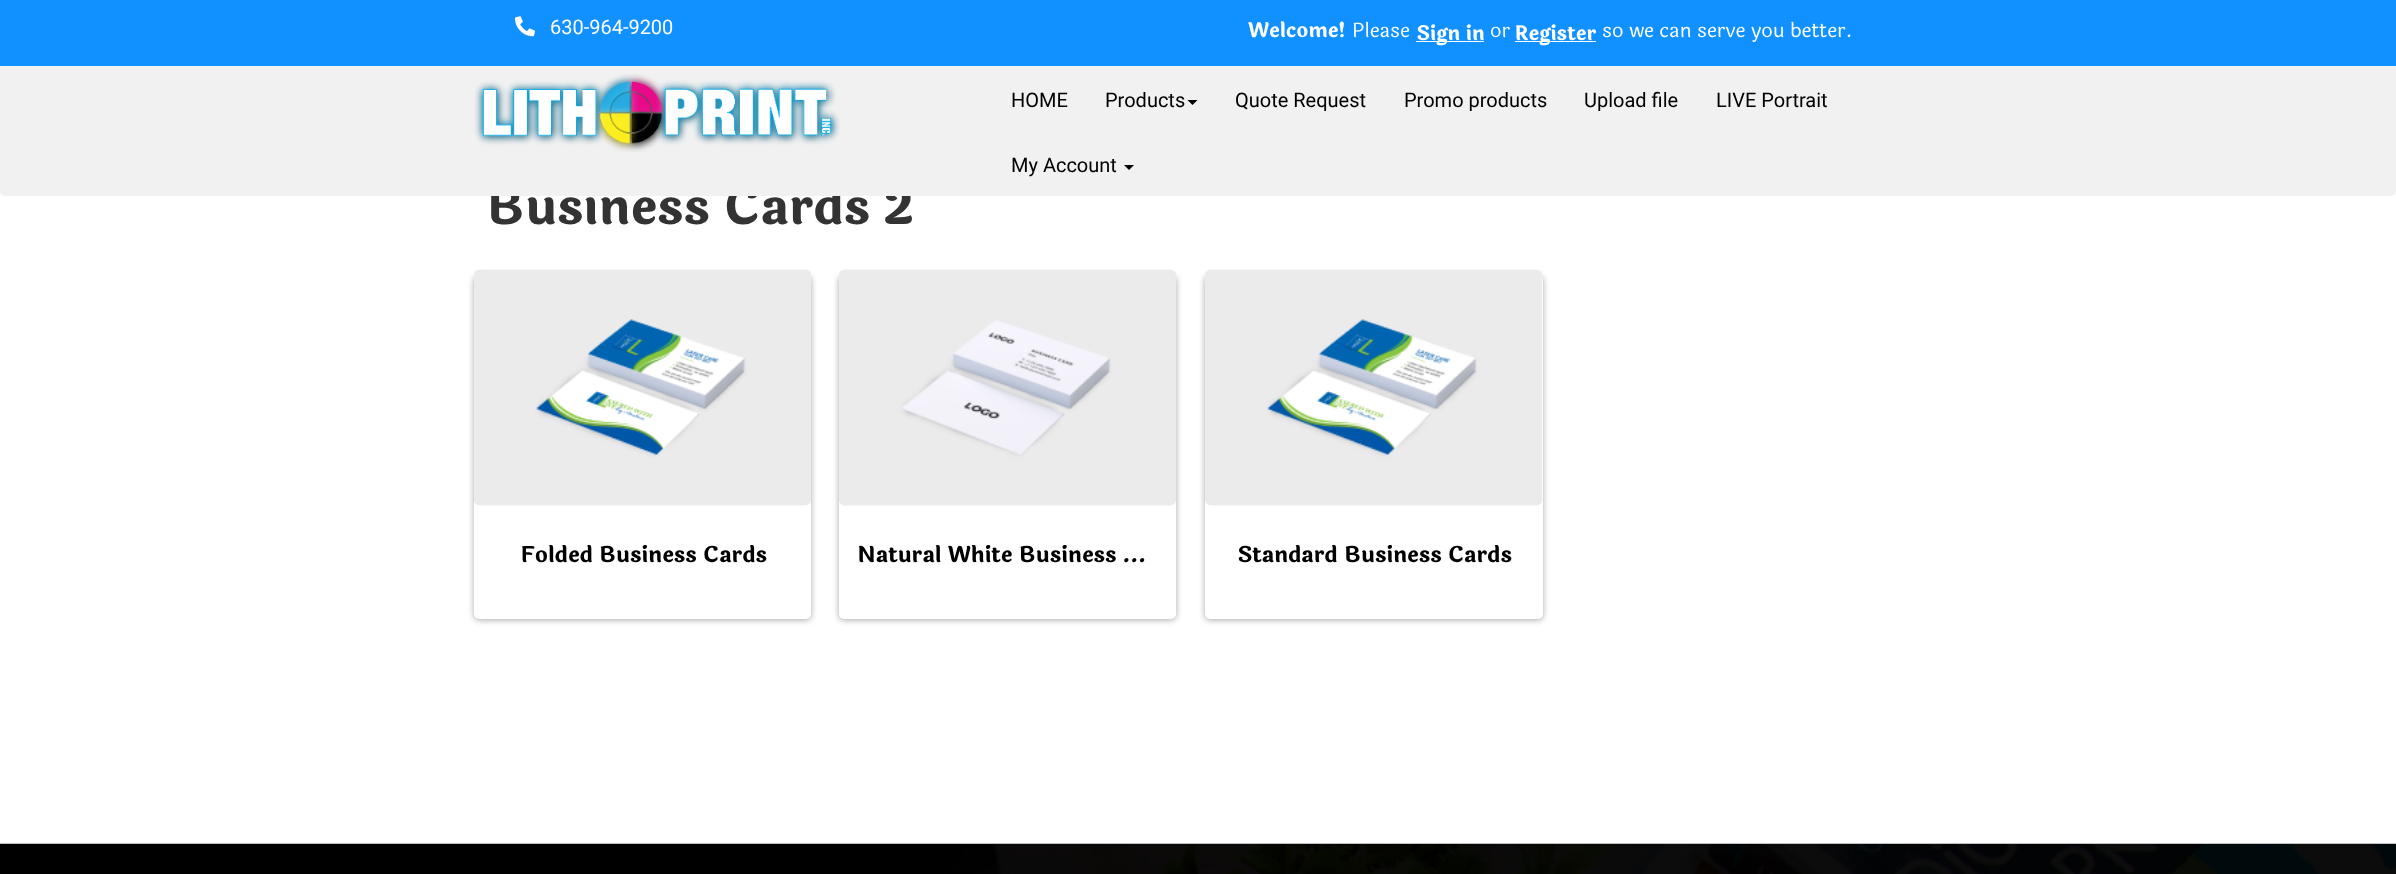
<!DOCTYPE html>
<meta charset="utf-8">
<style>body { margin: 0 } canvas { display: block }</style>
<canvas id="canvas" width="2396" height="874"></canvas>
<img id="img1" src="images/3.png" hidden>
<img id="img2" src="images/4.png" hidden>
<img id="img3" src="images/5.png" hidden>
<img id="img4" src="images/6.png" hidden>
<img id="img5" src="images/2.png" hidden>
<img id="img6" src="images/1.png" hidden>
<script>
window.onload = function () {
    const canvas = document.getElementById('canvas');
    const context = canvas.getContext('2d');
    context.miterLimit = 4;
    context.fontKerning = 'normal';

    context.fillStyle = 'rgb(255, 255, 255)';
    context.fillRect(0, 0, 2396, 874);
    context.fillStyle = 'rgb(168, 168, 168)';
    context.filter = 'blur(3px)';
    context.beginPath();
    context.roundRect(474, 276, 337, 344, 5);
    context.fill();
    context.filter = 'none';
    context.fillStyle = 'rgb(255, 255, 255)';
    context.beginPath();
    context.roundRect(474, 275, 337, 344, 5);
    context.fill();
    context.drawImage(document.getElementById('img1'), 474, 269, 337, 237);
    context.fillStyle = 'rgb(168, 168, 168)';
    context.filter = 'blur(3px)';
    context.beginPath();
    context.roundRect(839, 276, 337, 344, 5);
    context.fill();
    context.filter = 'none';
    context.fillStyle = 'rgb(255, 255, 255)';
    context.beginPath();
    context.roundRect(839, 275, 337, 344, 5);
    context.fill();
    context.drawImage(document.getElementById('img2'), 839, 269, 337, 237);
    context.fillStyle = 'rgb(168, 168, 168)';
    context.filter = 'blur(3px)';
    context.beginPath();
    context.roundRect(1205, 276, 338, 344, 5);
    context.fill();
    context.filter = 'none';
    context.fillStyle = 'rgb(255, 255, 255)';
    context.beginPath();
    context.roundRect(1205, 275, 338, 344, 5);
    context.fill();
    context.drawImage(document.getElementById('img3'), 1205, 269, 338, 237);
    context.drawImage(document.getElementById('img4'), 0, 843, 2396, 31);
    context.font = 'bold 50px Laila';
    context.fillStyle = 'rgb(51, 51, 51)';
    context.fillText('Business Cards 2', 486, 224);
    context.fillStyle = 'rgb(241, 241, 241)';
    context.beginPath();
    context.roundRect(0, 0, 2396, 196, 5);
    context.fill();
    context.fillStyle = 'rgb(0, 0, 0)';
    context.beginPath();
    context.moveTo(1124, 165);
    context.lineTo(1134, 165);
    context.lineTo(1129, 170);
    context.closePath();
    context.fill();
    context.font = '20px Roboto';
    context.fillText('My Account', 1011, 172);
    context.fillText('LIVE Portrait', 1716, 107);
    context.fillText('Upload file', 1584, 107);
    context.fillText('Promo products', 1404, 107);
    context.fillText('Quote Request', 1235, 107);
    context.beginPath();
    context.moveTo(1187.5, 100);
    context.lineTo(1197.5, 100);
    context.lineTo(1192.5, 105);
    context.closePath();
    context.fill();
    context.fillText('Products', 1105, 107);
    context.fillText('HOME', 1011, 107);
    context.drawImage(document.getElementById('img5'), 474, 74, 366, 78);
    context.fillStyle = 'rgb(17, 145, 255)';
    context.fillRect(0, 0, 2396, 66);
    context.font = '20px Laila';
    context.fillStyle = 'rgb(255, 255, 255)';
    context.fillText('so we can serve you better.', 1602, 37);
    context.fillRect(1515, 41, 81, 1);
    context.font = 'bold 20px Laila';
    context.fillText('Register', 1515, 40);
    context.font = '20px Laila';
    context.fillText('or', 1490, 37);
    context.fillRect(1416, 41, 68, 1);
    context.font = 'bold 20px Laila';
    context.fillText('Sign in', 1416, 40);
    context.font = '20px Laila';
    context.fillText('Please', 1352, 37);
    context.font = 'bold 20px Laila';
    context.fillText('Welcome!', 1248, 37);
    context.font = '20px Roboto';
    context.fillText('630-964-9200', 550, 34);
    context.drawImage(document.getElementById('img6'), 515, 16, 20, 21);
    context.save();
    context.beginPath();
    context.rect(474, 545, 365, 74);
    context.clip();
    context.font = 'bold 21.9px Laila';
    context.fillStyle = 'rgb(0, 0, 0)';
    context.fillText('Folded Business Cards', 520, 562);
    context.restore();
    context.save();
    context.beginPath();
    context.rect(839, 545, 366, 74);
    context.clip();
    context.font = 'bold 21.9px Laila';
    context.fillStyle = 'rgb(0, 0, 0)';
    context.fillText('Natural White Business …', 857, 562);
    context.restore();
    context.save();
    context.beginPath();
    context.rect(1205, 545, 365, 74);
    context.clip();
    context.font = 'bold 21.9px Laila';
    context.fillStyle = 'rgb(0, 0, 0)';
    context.fillText('Standard Business Cards', 1237, 562);
    context.restore();
};
</script>
